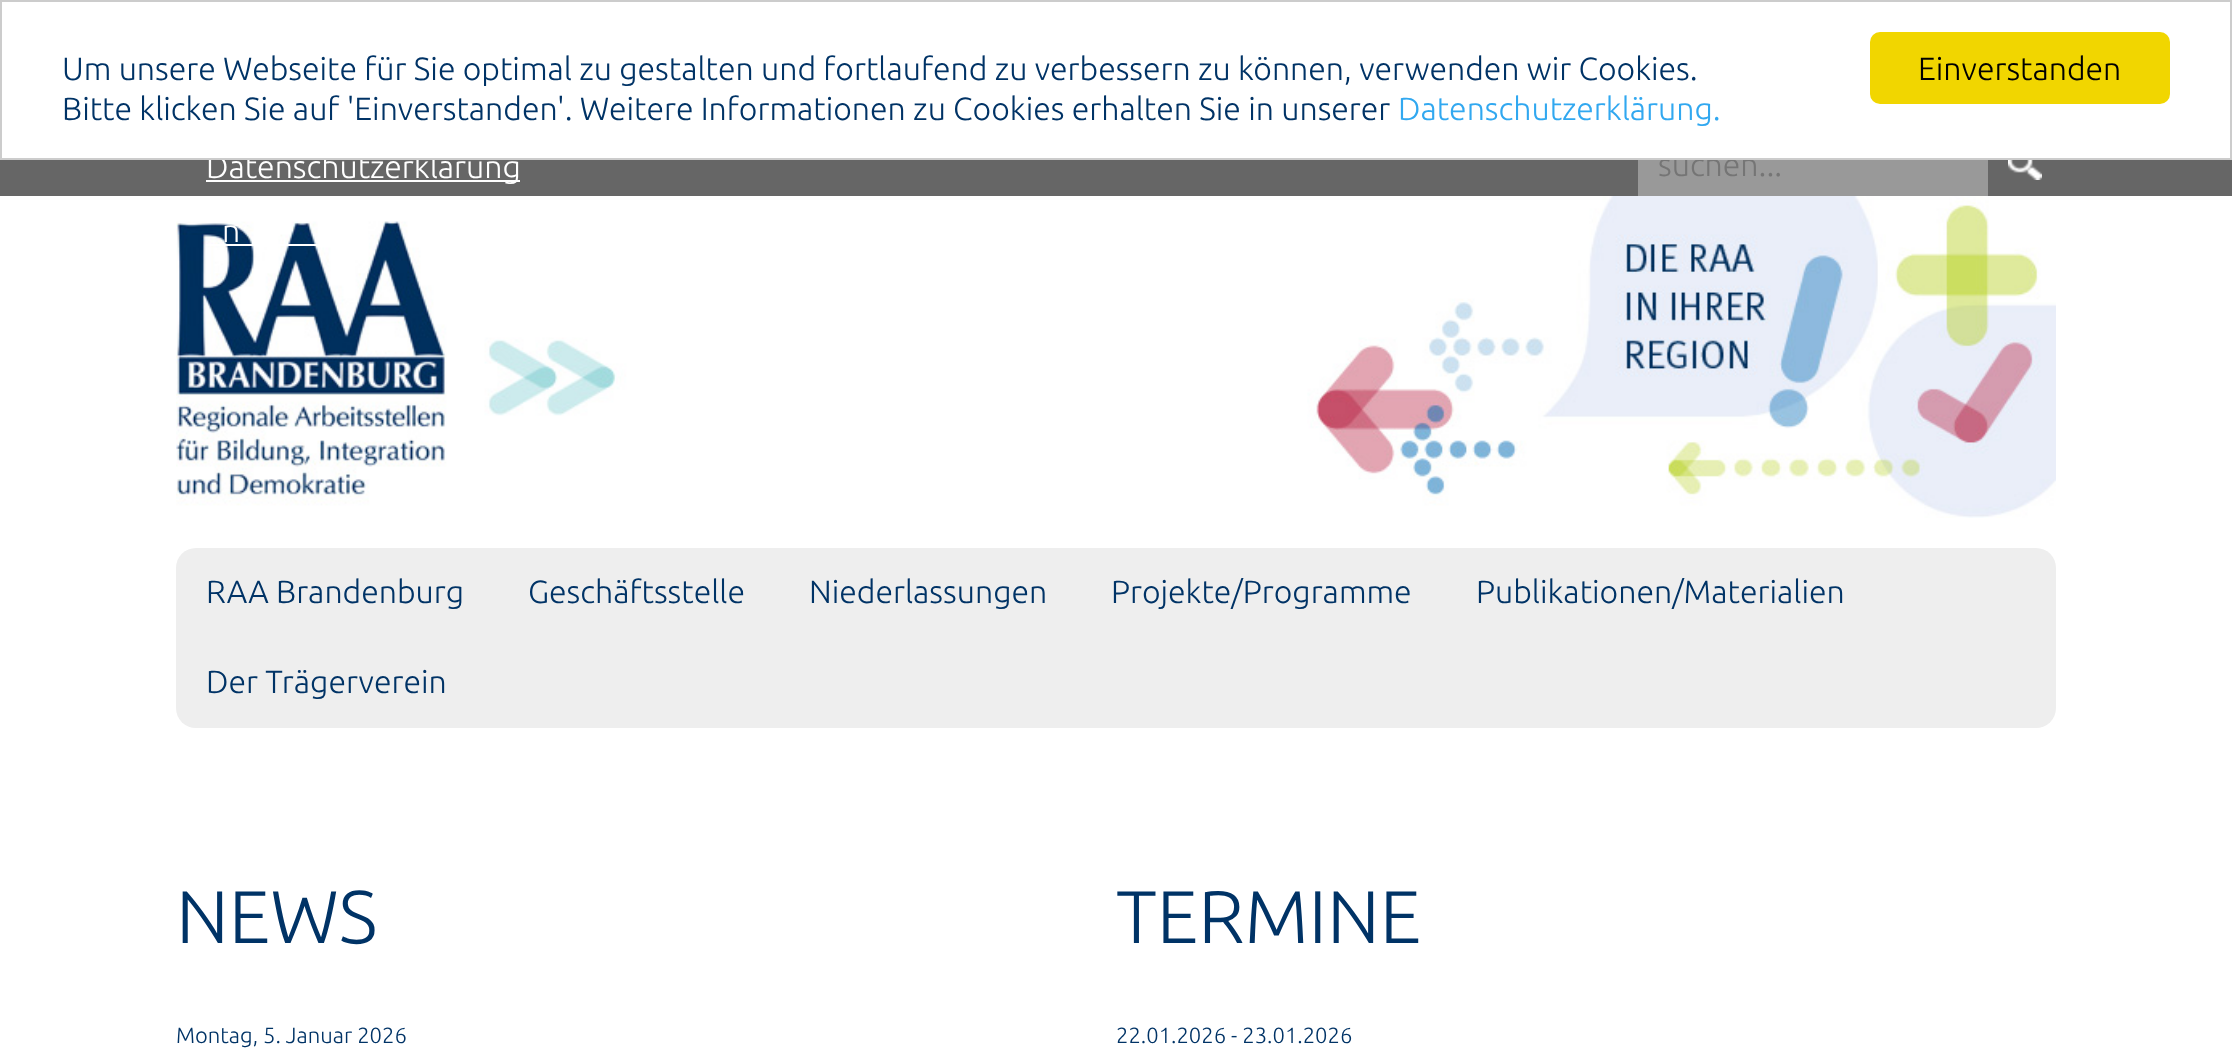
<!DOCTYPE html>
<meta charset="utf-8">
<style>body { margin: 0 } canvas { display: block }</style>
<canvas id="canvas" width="2232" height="1051"></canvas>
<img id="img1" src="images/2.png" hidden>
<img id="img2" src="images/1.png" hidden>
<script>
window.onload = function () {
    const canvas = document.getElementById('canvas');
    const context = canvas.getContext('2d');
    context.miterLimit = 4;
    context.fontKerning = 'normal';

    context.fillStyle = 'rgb(102, 102, 102)';
    context.fillRect(0, 0, 2232, 1051);
    context.fillStyle = 'rgb(255, 255, 255)';
    context.fillRect(206, 180, 314, 2);
    context.fillRect(0, 196, 2232, 855);
    context.drawImage(document.getElementById('img1'), 176, 196, 1880, 322);
    context.fillRect(206, 244, 111, 2);
    context.fillStyle = 'rgb(153, 153, 153)';
    context.fillRect(1638, 160, 350, 36);
    context.drawImage(document.getElementById('img2'), 2008, 160, 34, 20);
    context.fillStyle = 'rgb(238, 238, 238)';
    context.beginPath();
    context.roundRect(176, 548, 1880, 180, 20);
    context.fill();
    context.font = '300 32px Ubuntu';
    context.fillStyle = 'rgb(255, 255, 255)';
    context.fillText('Datenschutzerklärung', 206, 178);
    context.fillText('n', 222, 242);
    context.fillStyle = 'rgb(117, 117, 117)';
    context.fillText('suchen...', 1658, 176);
    context.fillStyle = 'rgb(255, 255, 255)';
    context.beginPath();
    context.rect(1, 1, 2230, 158);
    context.fill();
    context.strokeStyle = 'rgb(204, 204, 204)';
    context.lineWidth = 2;
    context.stroke();
    context.fillStyle = 'rgb(49, 168, 240)';
    context.fillText('Datenschutzerklärung.', 1398, 120);
    context.fillStyle = 'rgb(0, 51, 102)';
    context.fillText('Bitte klicken Sie auf \'Einverstanden\'. Weitere Informationen zu Cookies erhalten Sie in unserer', 62, 120);
    context.fillText('Um unsere Webseite für Sie optimal zu gestalten und fortlaufend zu verbessern zu können, verwenden wir Cookies.', 62, 80);
    context.fillStyle = 'rgb(241, 214, 0)';
    context.beginPath();
    context.roundRect(1870, 32, 300, 72, 10);
    context.fill();
    context.fillStyle = 'rgb(0, 0, 0)';
    context.fillText('Einverstanden', 1918, 80);
    context.fillStyle = 'rgb(0, 51, 102)';
    context.fillText('RAA Brandenburg', 206, 603);
    context.fillText('Geschäftsstelle', 528, 603);
    context.fillText('Niederlassungen', 809, 603);
    context.fillText('Projekte/Programme', 1111, 603);
    context.fillText('Publikationen/Materialien', 1476, 603);
    context.fillText('Der Trägerverein', 206, 693);
    context.font = '300 74.5px Ubuntu';
    context.fillText('NEWS', 176, 943);
    context.font = '300 22px Ubuntu';
    context.fillText('Montag, 5. Januar 2026', 176, 1043);
    context.font = '300 74.5px Ubuntu';
    context.fillText('TERMINE', 1116, 943);
    context.font = '300 22px Ubuntu';
    context.fillText('22.01.2026 - 23.01.2026', 1116, 1043);
};
</script>
